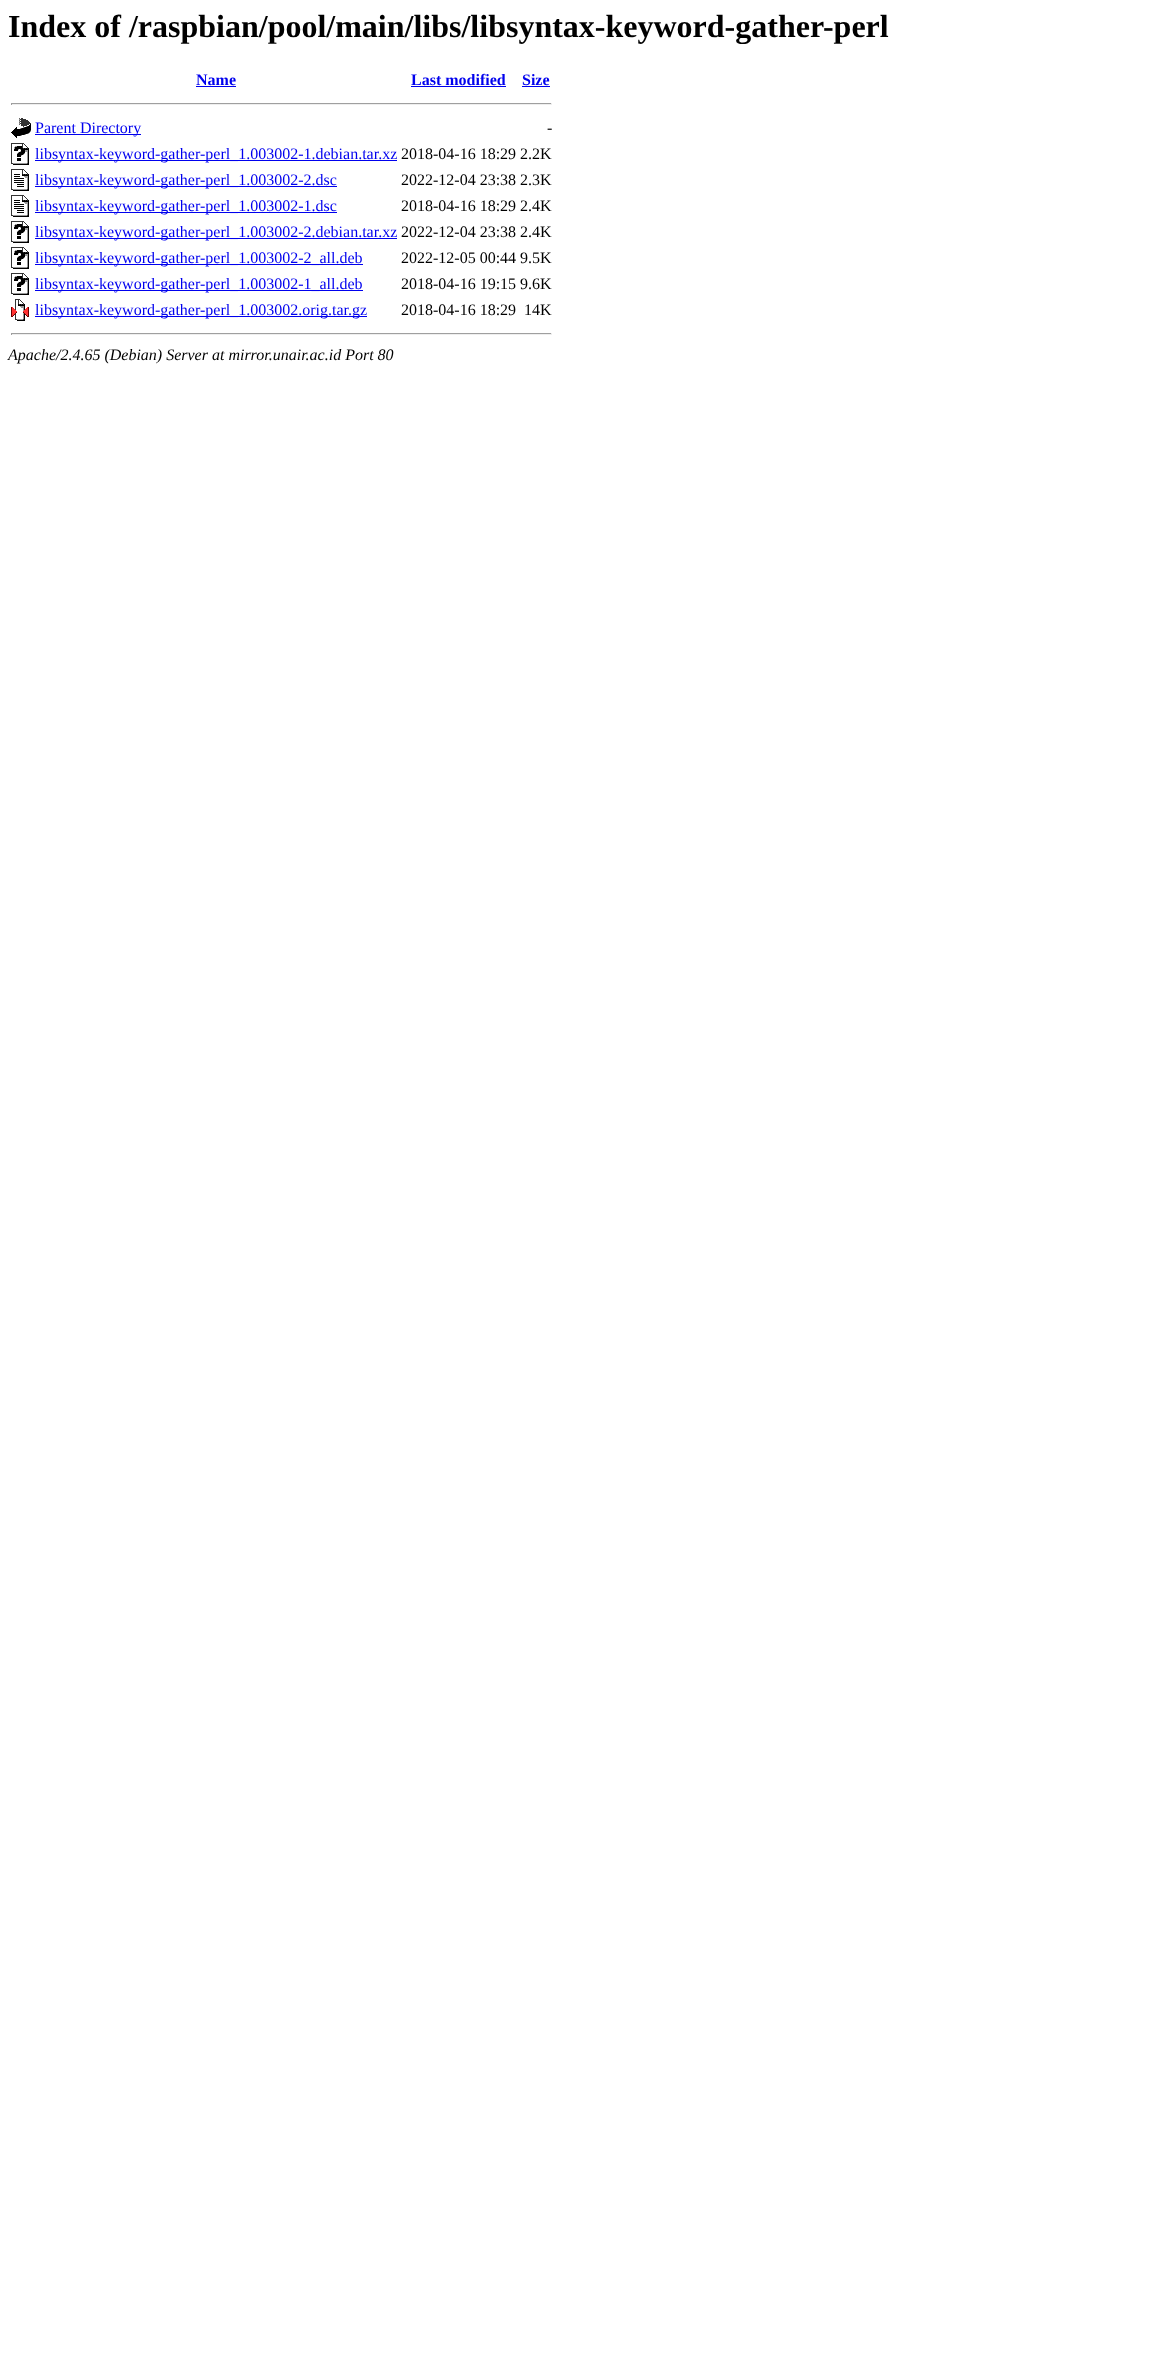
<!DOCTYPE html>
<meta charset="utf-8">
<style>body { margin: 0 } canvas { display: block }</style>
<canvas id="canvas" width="1176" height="2376"></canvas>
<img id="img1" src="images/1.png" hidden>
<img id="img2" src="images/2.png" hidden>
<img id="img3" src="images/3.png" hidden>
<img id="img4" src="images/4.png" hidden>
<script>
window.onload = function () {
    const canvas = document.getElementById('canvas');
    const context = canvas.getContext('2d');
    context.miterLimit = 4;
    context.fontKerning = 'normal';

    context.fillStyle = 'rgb(255, 255, 255)';
    context.fillRect(0, 0, 1176, 2376);
    context.fillStyle = 'rgb(0, 0, 238)';
    context.fillRect(196, 86, 40, 1);
    context.fillRect(411, 86, 95, 1);
    context.fillRect(522, 86, 28, 1);
    context.fillStyle = 'rgb(159, 159, 159)';
    context.fillRect(11, 103, 541, 1);
    context.fillStyle = 'rgb(238, 238, 238)';
    context.fillRect(551, 103, 1, 2);
    context.fillRect(11, 104, 541, 1);
    context.fillStyle = 'rgb(159, 159, 159)';
    context.fillRect(11, 103, 1, 2);
    context.drawImage(document.getElementById('img1'), 11, 118, 20, 20);
    context.fillStyle = 'rgb(0, 0, 238)';
    context.fillRect(35, 134, 106, 1);
    context.drawImage(document.getElementById('img2'), 11, 143, 18, 22);
    context.fillRect(35, 160, 362, 1);
    context.drawImage(document.getElementById('img3'), 11, 169, 18, 22);
    context.fillRect(35, 186, 302, 1);
    context.drawImage(document.getElementById('img3'), 11, 195, 18, 22);
    context.fillRect(35, 212, 302, 1);
    context.drawImage(document.getElementById('img2'), 11, 221, 18, 22);
    context.fillRect(35, 238, 362, 1);
    context.drawImage(document.getElementById('img2'), 11, 247, 18, 22);
    context.fillRect(35, 264, 328, 1);
    context.drawImage(document.getElementById('img2'), 11, 273, 18, 22);
    context.fillRect(35, 290, 328, 1);
    context.drawImage(document.getElementById('img4'), 11, 299, 18, 22);
    context.fillRect(35, 316, 332, 1);
    context.fillStyle = 'rgb(159, 159, 159)';
    context.fillRect(11, 333, 541, 1);
    context.fillStyle = 'rgb(238, 238, 238)';
    context.fillRect(551, 333, 1, 2);
    context.fillRect(11, 334, 541, 1);
    context.fillStyle = 'rgb(159, 159, 159)';
    context.fillRect(11, 333, 1, 2);
    context.font = 'bold 32px Liberation Serif';
    context.fillStyle = 'rgb(0, 0, 0)';
    context.fillText('Index of /raspbian/pool/main/libs/libsyntax-keyword-gather-perl', 8, 37);
    context.font = 'bold 16px Liberation Serif';
    context.fillStyle = 'rgb(0, 0, 238)';
    context.fillText('Name', 196, 85);
    context.fillText('Last modified', 411, 85);
    context.fillText('Size', 522, 85);
    context.font = '16px Liberation Serif';
    context.fillText('Parent Directory', 35, 133);
    context.fillStyle = 'rgb(0, 0, 0)';
    context.fillText('-', 547, 133);
    context.fillStyle = 'rgb(0, 0, 238)';
    context.fillText('libsyntax-keyword-gather-perl_1.003002-1.debian.tar.xz', 35, 159);
    context.fillStyle = 'rgb(0, 0, 0)';
    context.fillText('2018-04-16 18:29 2.2K', 401, 159);
    context.fillStyle = 'rgb(0, 0, 238)';
    context.fillText('libsyntax-keyword-gather-perl_1.003002-2.dsc', 35, 185);
    context.fillStyle = 'rgb(0, 0, 0)';
    context.fillText('2022-12-04 23:38 2.3K', 401, 185);
    context.fillStyle = 'rgb(0, 0, 238)';
    context.fillText('libsyntax-keyword-gather-perl_1.003002-1.dsc', 35, 211);
    context.fillStyle = 'rgb(0, 0, 0)';
    context.fillText('2018-04-16 18:29 2.4K', 401, 211);
    context.fillStyle = 'rgb(0, 0, 238)';
    context.fillText('libsyntax-keyword-gather-perl_1.003002-2.debian.tar.xz', 35, 237);
    context.fillStyle = 'rgb(0, 0, 0)';
    context.fillText('2022-12-04 23:38 2.4K', 401, 237);
    context.fillStyle = 'rgb(0, 0, 238)';
    context.fillText('libsyntax-keyword-gather-perl_1.003002-2_all.deb', 35, 263);
    context.fillStyle = 'rgb(0, 0, 0)';
    context.fillText('2022-12-05 00:44 9.5K', 401, 263);
    context.fillStyle = 'rgb(0, 0, 238)';
    context.fillText('libsyntax-keyword-gather-perl_1.003002-1_all.deb', 35, 289);
    context.fillStyle = 'rgb(0, 0, 0)';
    context.fillText('2018-04-16 19:15 9.6K', 401, 289);
    context.fillStyle = 'rgb(0, 0, 238)';
    context.fillText('libsyntax-keyword-gather-perl_1.003002.orig.tar.gz', 35, 315);
    context.fillStyle = 'rgb(0, 0, 0)';
    context.fillText('2018-04-16 18:29', 401, 315);
    context.fillText('14K', 524, 315);
    context.font = 'italic 16px Liberation Serif';
    context.fillText('Apache/2.4.65 (Debian) Server at mirror.unair.ac.id Port 80', 8, 360);
};
</script>
